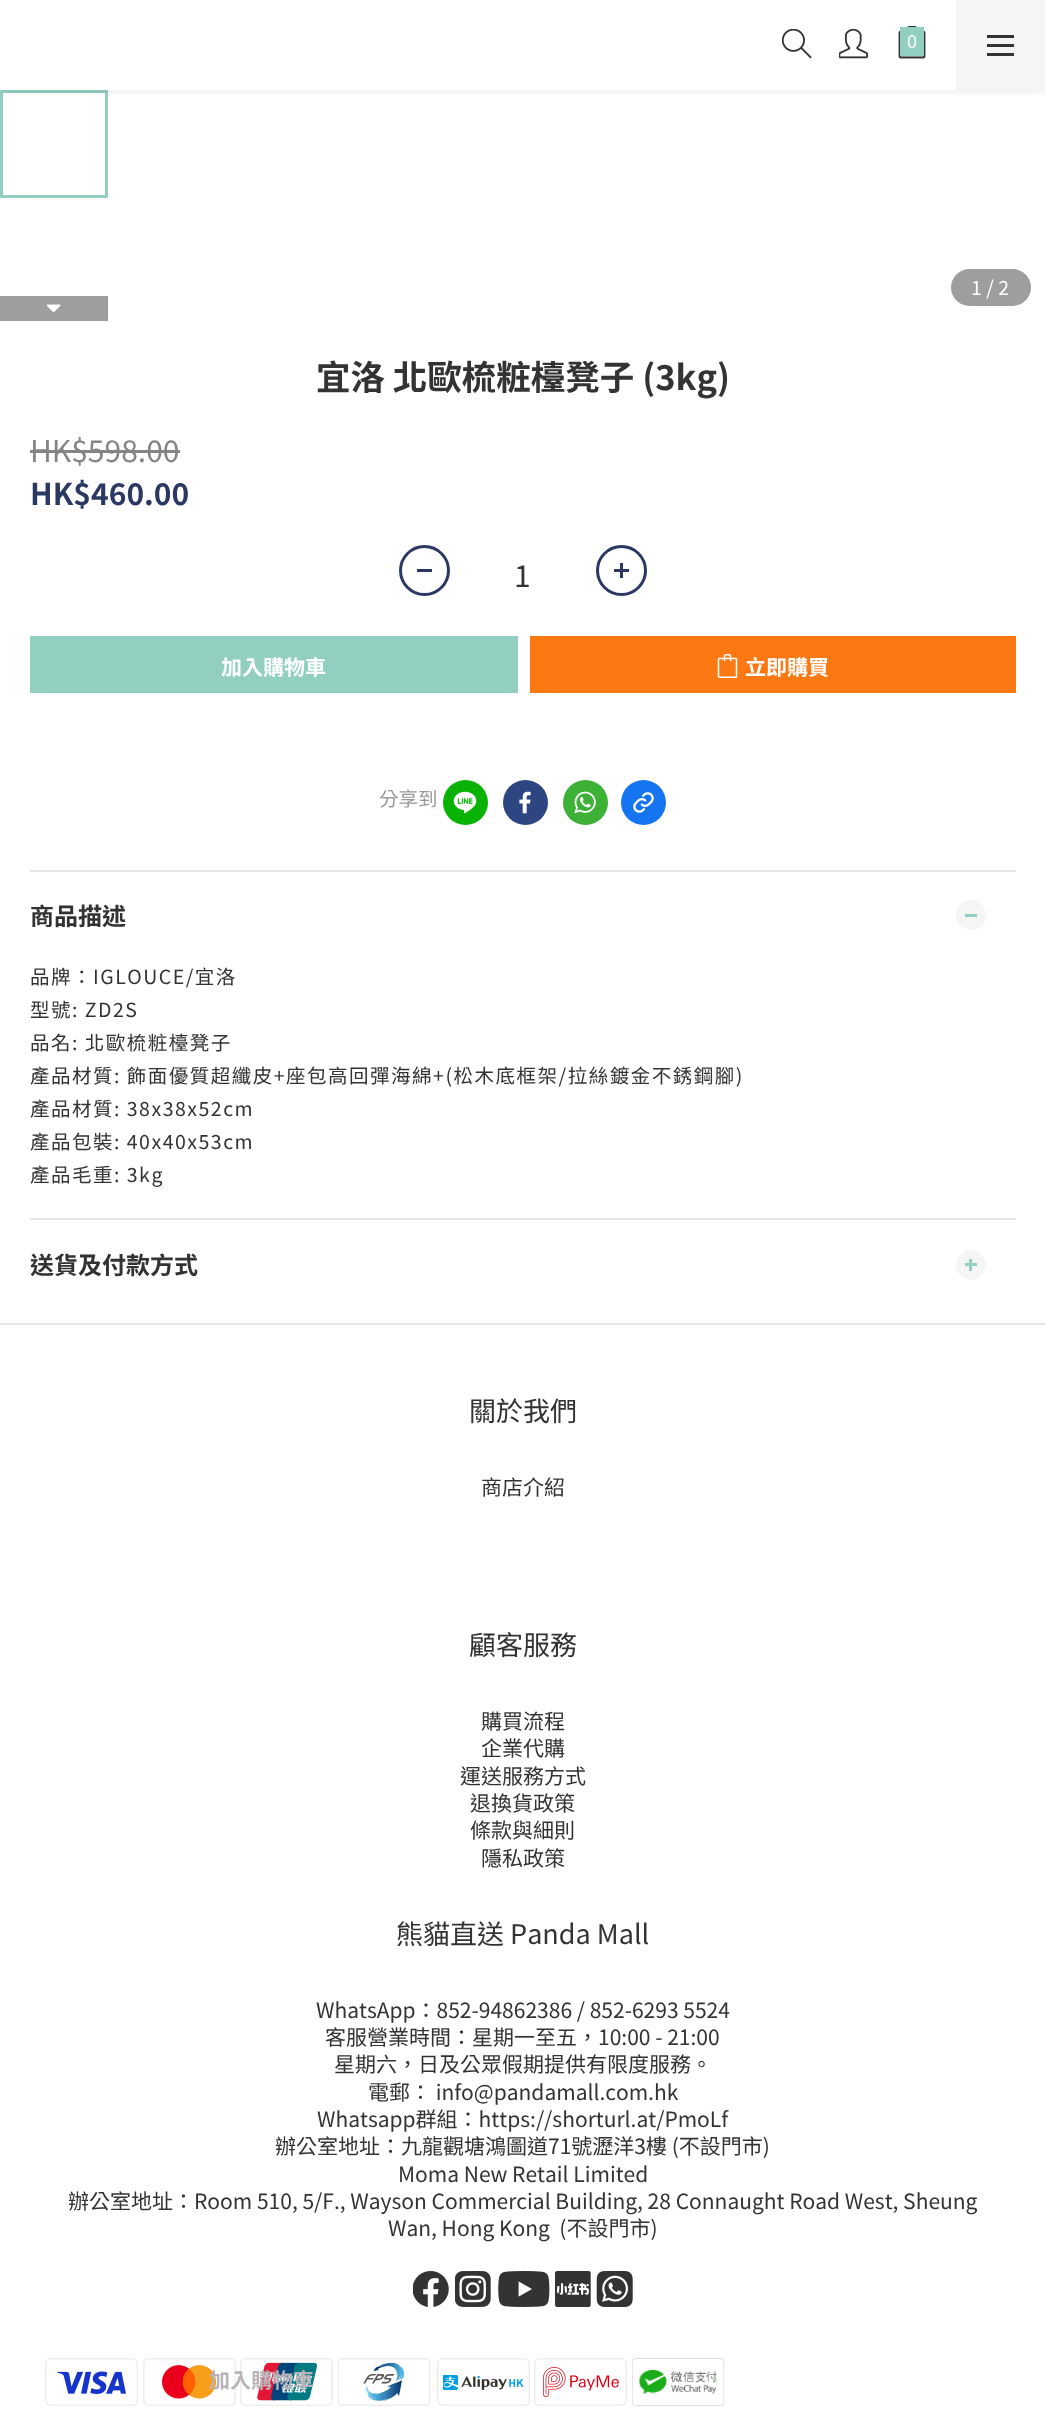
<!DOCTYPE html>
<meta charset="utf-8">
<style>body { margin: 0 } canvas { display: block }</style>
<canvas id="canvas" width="1045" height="2415"></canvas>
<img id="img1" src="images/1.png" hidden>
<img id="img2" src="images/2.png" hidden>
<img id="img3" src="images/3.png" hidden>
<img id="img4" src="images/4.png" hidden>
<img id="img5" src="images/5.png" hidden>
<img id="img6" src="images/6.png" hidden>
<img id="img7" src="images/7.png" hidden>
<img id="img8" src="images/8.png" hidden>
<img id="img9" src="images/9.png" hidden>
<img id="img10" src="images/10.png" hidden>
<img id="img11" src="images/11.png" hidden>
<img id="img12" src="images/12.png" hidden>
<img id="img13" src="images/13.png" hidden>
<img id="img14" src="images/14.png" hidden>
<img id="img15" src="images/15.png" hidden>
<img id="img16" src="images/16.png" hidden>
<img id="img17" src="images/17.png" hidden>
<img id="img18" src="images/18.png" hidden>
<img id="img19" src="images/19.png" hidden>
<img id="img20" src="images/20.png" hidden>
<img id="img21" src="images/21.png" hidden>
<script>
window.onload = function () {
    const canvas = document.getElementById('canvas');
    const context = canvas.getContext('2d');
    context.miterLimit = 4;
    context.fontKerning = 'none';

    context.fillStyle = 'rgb(255, 255, 255)';
    context.fillRect(0, 0, 1045, 2415);
    context.strokeStyle = 'rgb(146, 207, 192)';
    context.lineWidth = 3;
    context.strokeRect(1.5, 91.5, 105, 105);
    context.save();
    context.beginPath();
    context.rect(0, 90, 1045, 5);
    context.clip();
    context.fillStyle = 'rgba(0, 0, 0, 0.06)';
    context.filter = 'blur(4.5px)';
    context.beginPath();
    context.rect(0, 3, 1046, 90);
    context.fill();
    context.filter = 'none';
    context.restore();
    context.drawImage(document.getElementById('img1'), 782, 29, 30, 30);
    context.drawImage(document.getElementById('img2'), 839, 29, 29, 30);
    context.drawImage(document.getElementById('img3'), 898, 26, 28, 33);
    context.fillStyle = 'rgb(146, 207, 192)';
    context.fillRect(900, 27, 24, 29);
    context.fillStyle = 'rgb(245, 245, 245)';
    context.fillRect(956, 0, 89, 90);
    context.fillStyle = 'rgb(51, 51, 51)';
    context.fillRect(987, 44, 27, 3);
    context.fillRect(987, 35, 27, 3);
    context.fillRect(987, 53, 27, 3);
    context.fillStyle = 'rgb(158, 158, 158)';
    context.fillRect(0, 296, 108, 25);
    context.drawImage(document.getElementById('img4'), 46, 304, 15, 9);
    context.beginPath();
    context.roundRect(951, 269, 80, 37, 18.5);
    context.fill();
    context.fillStyle = 'rgb(133, 133, 133)';
    context.fillRect(30, 450, 150, 3);
    context.beginPath();
    context.arc(424.5, 570.5, 24, 0, 2 * Math.PI);
    context.strokeStyle = 'rgb(43, 56, 100)';
    context.stroke();
    context.fillStyle = 'rgb(43, 56, 100)';
    context.fillRect(417, 569, 15, 3);
    context.beginPath();
    context.arc(621.5, 570.5, 24, 0, 2 * Math.PI);
    context.stroke();
    context.fillRect(614, 569, 15, 3);
    context.fillRect(620, 563, 3, 15);
    context.fillStyle = 'rgb(146, 207, 192)';
    context.fillRect(30, 636, 488, 57);
    context.fillStyle = 'rgb(251, 120, 19)';
    context.fillRect(530, 636, 486, 57);
    context.drawImage(document.getElementById('img5'), 717, 654, 21, 24);
    context.fillStyle = 'rgb(9, 179, 5)';
    context.beginPath();
    context.arc(465.5, 802.5, 22.5, 0, 2 * Math.PI);
    context.fill();
    context.drawImage(document.getElementById('img6'), 453, 791, 24, 23);
    context.fillStyle = 'rgb(45, 70, 130)';
    context.beginPath();
    context.arc(525.5, 802.5, 22.5, 0, 2 * Math.PI);
    context.fill();
    context.drawImage(document.getElementById('img7'), 519, 791, 12, 23);
    context.fillStyle = 'rgb(60, 177, 54)';
    context.beginPath();
    context.arc(585.5, 802.5, 22.5, 0, 2 * Math.PI);
    context.fill();
    context.drawImage(document.getElementById('img8'), 574, 791, 22, 23);
    context.fillStyle = 'rgb(21, 117, 240)';
    context.beginPath();
    context.arc(643.5, 802.5, 22.5, 0, 2 * Math.PI);
    context.fill();
    context.drawImage(document.getElementById('img9'), 633, 792, 21, 21);
    context.fillStyle = 'rgb(230, 230, 230)';
    context.fillRect(30, 870, 986, 2);
    context.fillStyle = 'rgb(245, 245, 245)';
    context.beginPath();
    context.arc(971, 915, 15, 0, 2 * Math.PI);
    context.fill();
    context.fillStyle = 'rgb(146, 207, 192)';
    context.fillRect(965, 914, 12, 3);
    context.fillStyle = 'rgb(230, 230, 230)';
    context.fillRect(30, 1218, 986, 2);
    context.fillStyle = 'rgb(245, 245, 245)';
    context.beginPath();
    context.arc(971, 1265, 15, 0, 2 * Math.PI);
    context.fill();
    context.fillStyle = 'rgb(146, 207, 192)';
    context.fillRect(965, 1263, 12, 3);
    context.fillRect(969, 1259, 3, 12);
    context.fillStyle = 'rgb(230, 230, 230)';
    context.fillRect(0, 1323, 1045, 2);
    context.drawImage(document.getElementById('img10'), 413, 2271, 36, 36);
    context.drawImage(document.getElementById('img11'), 455, 2271, 36, 36);
    context.drawImage(document.getElementById('img12'), 498, 2271, 52, 36);
    context.drawImage(document.getElementById('img13'), 555, 2271, 36, 36);
    context.drawImage(document.getElementById('img14'), 596, 2271, 37, 36);
    context.drawImage(document.getElementById('img15'), 45, 2358, 93, 48);
    context.drawImage(document.getElementById('img16'), 143, 2358, 93, 48);
    context.drawImage(document.getElementById('img17'), 240, 2358, 93, 48);
    context.drawImage(document.getElementById('img18'), 338, 2358, 93, 48);
    context.drawImage(document.getElementById('img19'), 437, 2358, 93, 48);
    context.drawImage(document.getElementById('img20'), 534, 2358, 93, 48);
    context.drawImage(document.getElementById('img21'), 632, 2358, 93, 48);
    context.font = '18px Noto Sans TC';
    context.fillStyle = 'rgb(255, 255, 255)';
    context.fillText('0', 907, 48);
    context.font = '19.5px Noto Sans TC';
    context.fillText('1 / 2', 971, 295);
    context.font = 'bold 34.5px Noto Sans TC';
    context.fillStyle = 'rgb(51, 51, 51)';
    context.fillText('宜洛 北歐梳粧檯凳子 (3kg)', 316, 390);
    context.font = '30px Noto Sans TC';
    context.fillStyle = 'rgb(133, 133, 133)';
    context.fillText('HK$598.00', 30, 462);
    context.font = 'bold 30px Noto Sans TC';
    context.fillStyle = 'rgb(43, 56, 100)';
    context.fillText('HK$460.00', 30, 505);
    context.font = '30px Noto Sans TC';
    context.fillStyle = 'rgb(51, 51, 51)';
    context.fillText('1', 514, 587);
    context.font = 'bold 21px Noto Sans TC';
    context.fillStyle = 'rgb(255, 255, 255)';
    context.fillText('加入購物車', 221, 675);
    context.fillText('立即購買', 745, 675);
    context.font = '19.5px Noto Sans TC';
    context.fillStyle = 'rgb(153, 153, 153)';
    context.fillText('分享到', 379, 806);
    context.font = 'bold 24px Noto Sans TC';
    context.fillStyle = 'rgb(51, 51, 51)';
    context.fillText('商品描述', 30, 925);
    context.letterSpacing = '1.5px';
    context.font = '19.5px Noto Sans TC';
    context.fillText('品牌：IGLOUCE/宜洛', 30, 984);
    context.fillText('型號: ZD2S', 30, 1017);
    context.fillText('品名: 北歐梳粧檯凳子', 30, 1050);
    context.fillText('產品材質: 飾面優質超纖皮+座包高回彈海綿+(松木底框架/拉絲鍍金不銹鋼腳)', 30, 1083);
    context.fillText('產品材質: 38x38x52cm', 30, 1116);
    context.fillText('產品包裝: 40x40x53cm', 30, 1149);
    context.fillText('產品毛重: 3kg', 30, 1182);
    context.letterSpacing = '0px';
    context.font = 'bold 24px Noto Sans TC';
    context.fillText('送貨及付款方式', 30, 1274);
    context.font = 'bold 21px Noto Sans TC';
    context.fillStyle = 'rgb(185, 180, 185)';
    context.fillText('加入購物車', 209, 2388);
    context.font = '27px Noto Sans TC';
    context.fillStyle = 'rgb(51, 51, 51)';
    context.fillText('關於我們', 469, 1421);
    context.font = '21px Noto Sans TC';
    context.fillText('商店介紹', 481, 1495);
    context.font = '27px Noto Sans TC';
    context.fillText('顧客服務', 469, 1655);
    context.font = '21px Noto Sans TC';
    context.fillText('購買流程', 481, 1729);
    context.fillText('企業代購', 481, 1756);
    context.fillText('運送服務方式', 460, 1784);
    context.fillText('退換貨政策', 470, 1811);
    context.fillText('條款與細則', 470, 1838);
    context.fillText('隱私政策', 481, 1866);
    context.font = '27px Noto Sans TC';
    context.fillText('熊貓直送 Panda Mall', 396, 1944);
    context.font = '21px Noto Sans TC';
    context.fillText('WhatsApp：852-94862386 / 852-6293 5524', 316, 2018);
    context.fillText('客服營業時間：星期一至五，10:00 - 21:00', 325, 2045);
    context.fillText('星期六，日及公眾假期提供有限度服務。', 334, 2072);
    context.fillText('電郵： info@pandamall.com.hk', 368, 2100);
    context.fillText('Whatsapp群組：https://shorturl.at/PmoLf', 317, 2127);
    context.fillText('辦公室地址：九龍觀塘鴻圖道71號瀝洋3樓 (不設門市)', 275, 2154);
    context.fillText('Moma New Retail Limited', 398, 2182);
    context.fillText('辦公室地址：Room 510, 5/F., Wayson Commercial Building, 28 Connaught Road West, Sheung', 68, 2209);
    context.fillText('Wan, Hong Kong  (不設門市)', 388, 2236);
};
</script>
